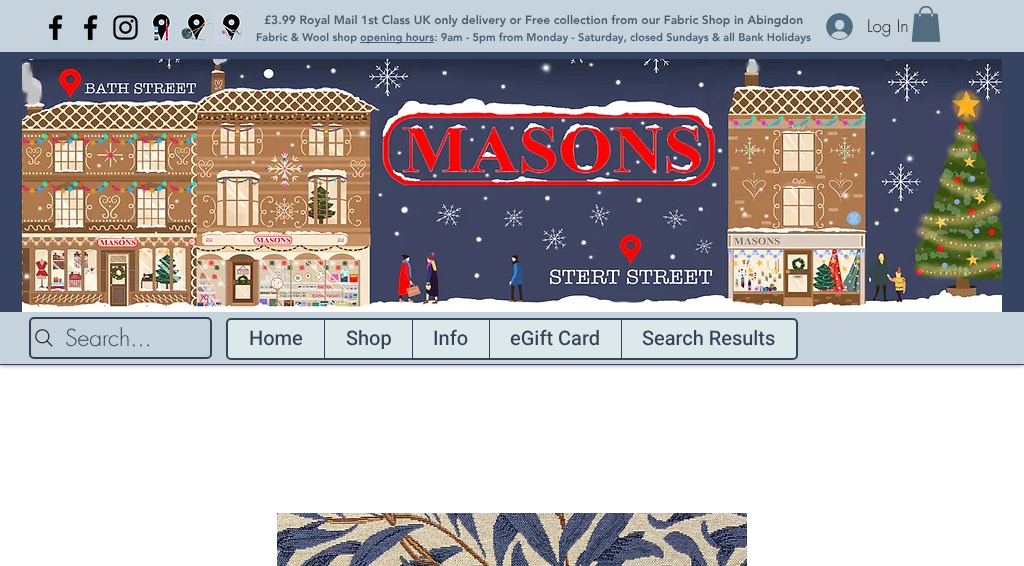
<!DOCTYPE html>
<meta charset="utf-8">
<style>body { margin: 0 } canvas { display: block }</style>
<canvas id="canvas" width="1024" height="566"></canvas>
<img id="img1" src="images/1.png" hidden>
<img id="img2" src="images/2.png" hidden>
<img id="img3" src="images/3.png" hidden>
<img id="img4" src="images/4.png" hidden>
<img id="img5" src="images/5.png" hidden>
<img id="img6" src="images/6.png" hidden>
<img id="img7" src="images/7.png" hidden>
<img id="img8" src="images/8.png" hidden>
<img id="img9" src="images/9.png" hidden>
<img id="img10" src="images/10.png" hidden>
<script>
window.onload = function () {
    const canvas = document.getElementById('canvas');
    const context = canvas.getContext('2d');
    context.miterLimit = 4;
    context.fontKerning = 'normal';

    context.fillStyle = 'rgb(255, 255, 255)';
    context.fillRect(0, 0, 1024, 566);
    context.fillStyle = 'rgba(0, 0, 0, 0.5)';
    context.filter = 'blur(2.5px)';
    context.beginPath();
    context.rect(0, 0, 1024, 365);
    context.fill();
    context.filter = 'none';
    context.fillStyle = 'rgb(54, 67, 97)';
    context.fillRect(0, 52, 1024, 313);
    context.fillStyle = 'rgb(198, 211, 220)';
    context.fillRect(0, 0, 1024, 52);
    context.drawImage(document.getElementById('img1'), 48, 15, 15, 26);
    context.drawImage(document.getElementById('img1'), 83, 15, 15, 26);
    context.drawImage(document.getElementById('img2'), 113, 15, 25, 25);
    context.drawImage(document.getElementById('img3'), 151, 12, 21, 30);
    context.drawImage(document.getElementById('img4'), 180, 12, 31, 30);
    context.drawImage(document.getElementById('img5'), 214, 11, 31, 33);
    context.fillStyle = 'rgb(72, 94, 113)';
    context.fillRect(360, 42, 74, 1);
    context.drawImage(document.getElementById('img6'), 826, 13, 27, 27);
    context.drawImage(document.getElementById('img7'), 911, 6, 30, 36);
    context.drawImage(document.getElementById('img8'), 22, 59, 980, 253);
    context.fillStyle = 'rgb(198, 211, 220)';
    context.fillRect(0, 312, 1024, 52);
    context.beginPath();
    context.roundRect(30, 318, 181, 40, 4);
    context.strokeStyle = 'rgb(50, 65, 88)';
    context.lineWidth = 2;
    context.stroke();
    context.drawImage(document.getElementById('img9'), 35, 329, 18, 18);
    context.fillStyle = 'rgb(221, 232, 235)';
    context.beginPath();
    context.roundRect(227, 319, 570, 40, 4);
    context.fill();
    context.strokeStyle = 'rgb(52, 72, 85)';
    context.stroke();
    context.fillStyle = 'rgb(50, 65, 88)';
    context.fillRect(324, 320, 1, 38);
    context.fillRect(412, 320, 1, 38);
    context.fillRect(489, 320, 1, 38);
    context.fillRect(621, 320, 1, 38);
    context.drawImage(document.getElementById('img10'), 277, 513, 470, 53);
    context.font = '900 12px "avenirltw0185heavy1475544"';
    context.fillStyle = 'rgb(72, 94, 113)';
    context.fillText('£3.99 Royal Mail 1st Class UK only delivery or Free collection from our Fabric Shop in Abingdon', 264, 24);
    context.font = '900 11px "avenirltw0185heavy1475544"';
    context.fillText('Fabric & Wool shop', 256, 41);
    context.fillText('opening hours: 9am - 5pm from Monday - Saturday, closed Sundays & all Bank Holidays', 360, 41);
    context.font = '300 17px futura';
    context.fillStyle = 'rgb(24, 24, 24)';
    context.fillText('Log In', 867, 32);
    context.font = '300 23px futura';
    context.fillStyle = 'rgb(52, 72, 85)';
    context.fillText('Search...', 65, 346);
    context.font = '500 20px Heebo';
    context.fillStyle = 'rgb(50, 65, 88)';
    context.fillText('Home', 249, 345);
    context.fillText('Shop', 346, 345);
    context.fillText('Info', 433, 345);
    context.fillText('eGift Card', 510, 345);
    context.fillText('Search Results', 642, 345);
};
</script>
